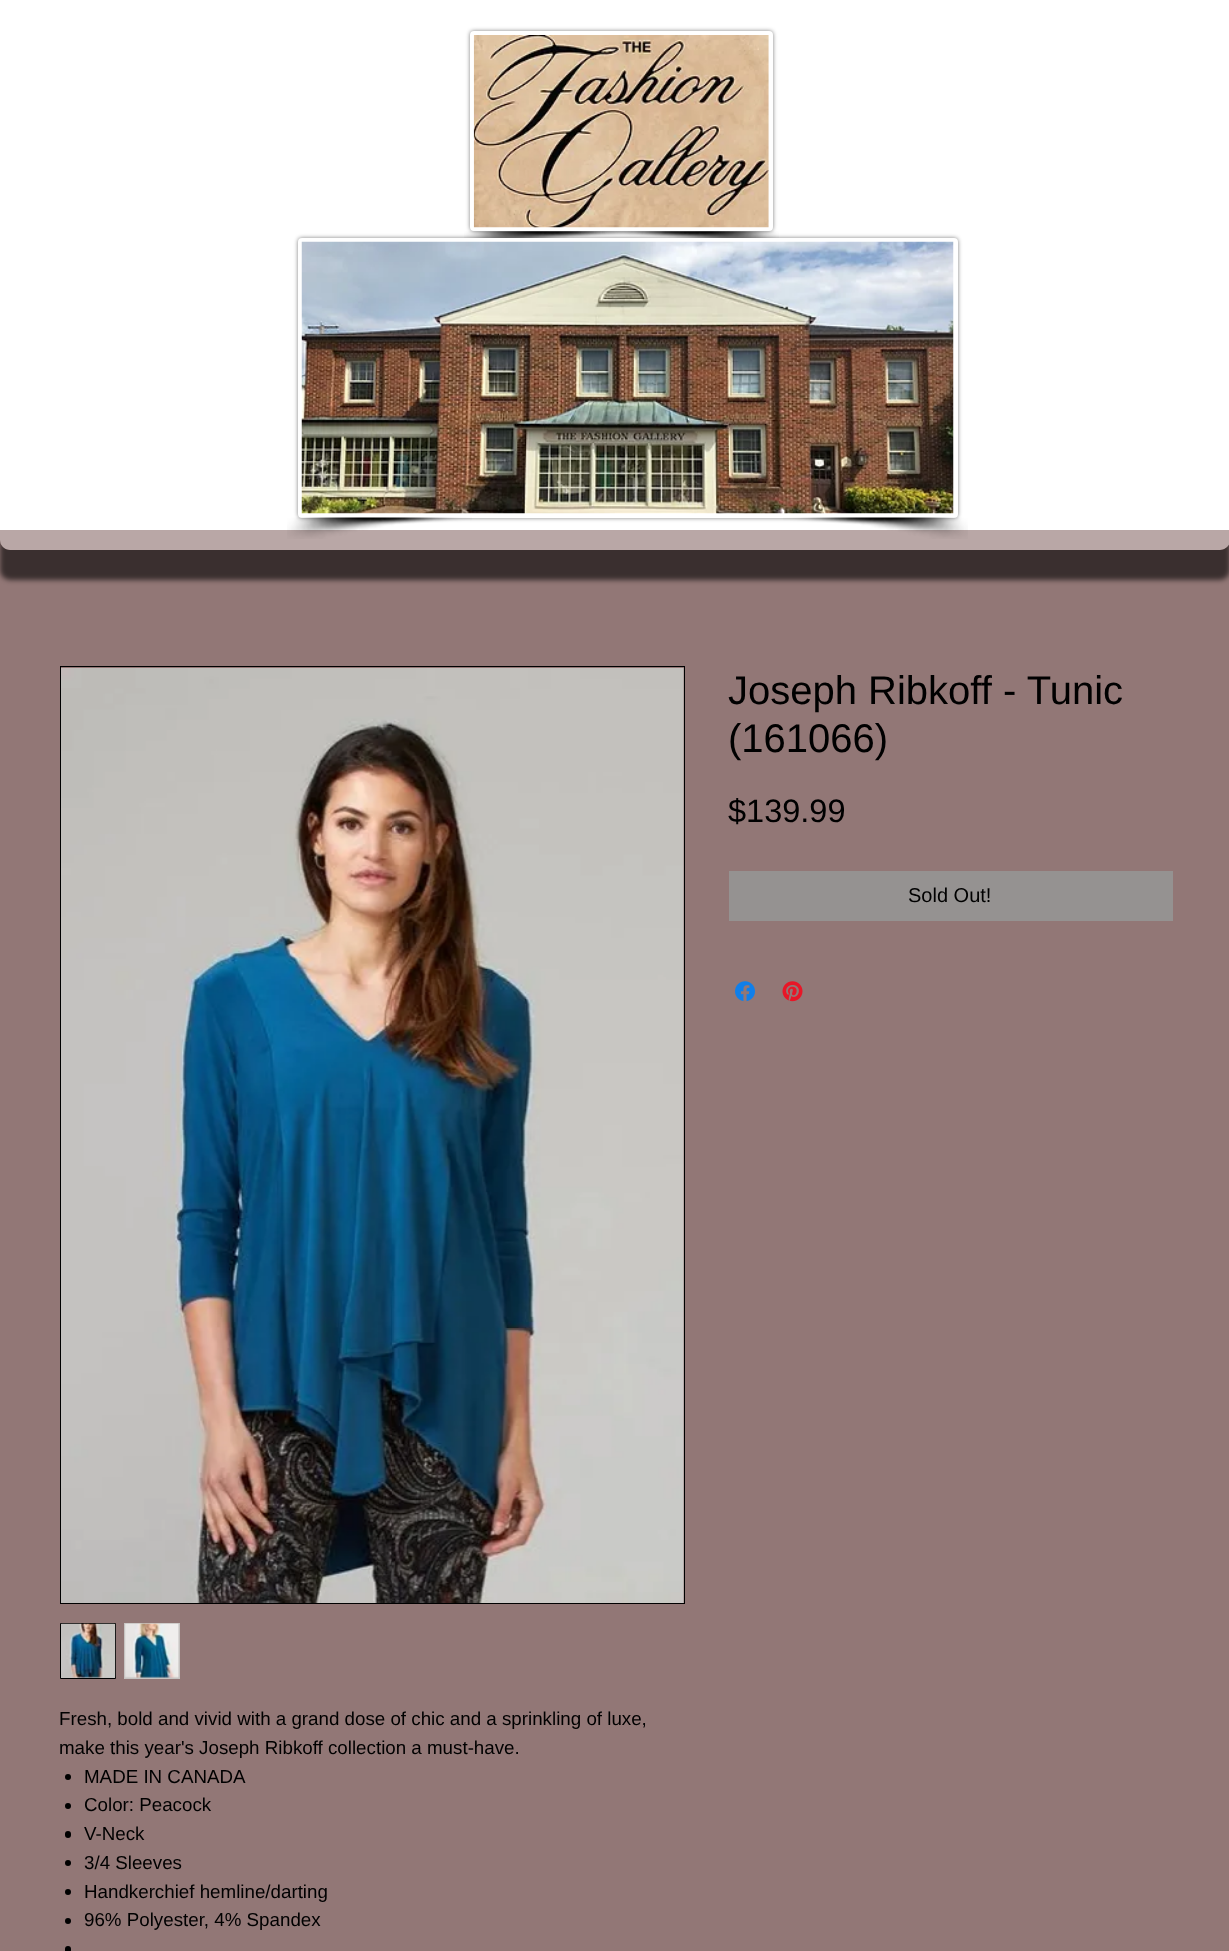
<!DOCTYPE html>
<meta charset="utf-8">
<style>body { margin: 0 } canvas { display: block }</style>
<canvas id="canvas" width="1229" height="1951"></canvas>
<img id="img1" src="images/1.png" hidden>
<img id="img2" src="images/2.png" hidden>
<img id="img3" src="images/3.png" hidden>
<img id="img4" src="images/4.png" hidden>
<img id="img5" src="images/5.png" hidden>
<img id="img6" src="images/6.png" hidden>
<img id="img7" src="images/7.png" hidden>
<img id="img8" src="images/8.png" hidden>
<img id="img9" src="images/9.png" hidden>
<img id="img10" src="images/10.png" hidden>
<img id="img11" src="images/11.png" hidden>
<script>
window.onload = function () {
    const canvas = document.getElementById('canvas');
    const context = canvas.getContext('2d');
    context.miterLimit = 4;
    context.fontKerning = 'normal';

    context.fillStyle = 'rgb(146, 119, 118)';
    context.fillRect(0, 0, 1229, 1951);
    context.save();
    context.beginPath();
    context.moveTo(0, 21);
    context.lineTo(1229, 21);
    context.lineTo(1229, 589);
    context.lineTo(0, 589);
    context.closePath();
    context.moveTo(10, 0);
    context.lineTo(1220, 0);
    context.bezierCurveTo(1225.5, 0, 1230, 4.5, 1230, 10);
    context.lineTo(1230, 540);
    context.bezierCurveTo(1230, 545.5, 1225.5, 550, 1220, 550);
    context.lineTo(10, 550);
    context.bezierCurveTo(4.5, 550, 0, 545.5, 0, 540);
    context.lineTo(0, 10);
    context.bezierCurveTo(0, 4.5, 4.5, 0, 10, 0);
    context.closePath();
    context.clip('evenodd');
    context.fillStyle = 'rgba(0, 0, 0, 0.6)';
    context.filter = 'blur(2.5px)';
    context.beginPath();
    context.roundRect(0, 30, 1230, 550, 10);
    context.fill();
    context.filter = 'none';
    context.restore();
    context.fillStyle = 'rgba(248, 244, 241, 0.39)';
    context.beginPath();
    context.roundRect(0, 0, 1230, 550, 10);
    context.fill();
    context.fillStyle = 'rgb(255, 255, 255)';
    context.fillRect(0, 0, 1229, 530);
    context.fillStyle = 'rgba(0, 0, 0, 0.5)';
    context.filter = 'blur(2px)';
    context.beginPath();
    context.roundRect(470, 31, 303, 200, 4);
    context.fill();
    context.filter = 'none';
    context.fillStyle = 'rgb(255, 255, 255)';
    context.beginPath();
    context.roundRect(472, 33, 299, 196, 2);
    context.fill();
    context.strokeStyle = 'rgb(255, 255, 255)';
    context.lineWidth = 4;
    context.stroke();
    context.drawImage(document.getElementById('img1'), 473, 35, 296, 193);
    context.drawImage(document.getElementById('img2'), 464, 231, 179, 7);
    context.drawImage(document.getElementById('img3'), 602, 231, 177, 7);
    context.fillStyle = 'rgba(0, 0, 0, 0.5)';
    context.filter = 'blur(2px)';
    context.beginPath();
    context.roundRect(298, 238, 660, 280, 4);
    context.fill();
    context.filter = 'none';
    context.fillStyle = 'rgb(255, 255, 255)';
    context.beginPath();
    context.roundRect(300, 240, 656, 276, 2);
    context.fill();
    context.stroke();
    context.drawImage(document.getElementById('img4'), 301, 241, 653, 273);
    context.drawImage(document.getElementById('img5'), 287, 517, 185, 22);
    context.drawImage(document.getElementById('img6'), 783, 517, 185, 22);
    context.fillStyle = 'rgb(149, 146, 145)';
    context.fillRect(729, 871, 444, 50);
    context.drawImage(document.getElementById('img7'), 735, 981, 20, 21);
    context.drawImage(document.getElementById('img8'), 782, 981, 21, 21);
    context.strokeStyle = 'rgb(0, 0, 0)';
    context.lineWidth = 1;
    context.strokeRect(60.5, 666.5, 624, 937);
    context.drawImage(document.getElementById('img9'), 61, 668, 623, 935);
    context.fillStyle = 'rgb(198, 195, 193)';
    context.beginPath();
    context.rect(60.5, 1623.5, 55, 55);
    context.fill();
    context.stroke();
    context.drawImage(document.getElementById('img10'), 61, 1623, 55, 55);
    context.fillRect(124, 1623, 56, 56);
    context.drawImage(document.getElementById('img11'), 125, 1623, 54, 55);
    context.fillStyle = 'rgb(0, 0, 0)';
    context.beginPath();
    context.arc(68, 1777, 3, 0, 2 * Math.PI);
    context.fill();
    context.beginPath();
    context.arc(68, 1806, 3, 0, 2 * Math.PI);
    context.fill();
    context.beginPath();
    context.roundRect(65, 1831, 6, 7, 3);
    context.fill();
    context.beginPath();
    context.arc(68, 1863, 3, 0, 2 * Math.PI);
    context.fill();
    context.beginPath();
    context.arc(68, 1892, 3, 0, 2 * Math.PI);
    context.fill();
    context.beginPath();
    context.arc(68, 1921, 3, 0, 2 * Math.PI);
    context.fill();
    context.beginPath();
    context.roundRect(65, 1946, 6, 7, 3);
    context.fill();
    context.font = '40px Liberation Sans';
    context.fillText('Joseph Ribkoff - Tunic', 728, 704);
    context.fillText('(161066)', 728, 752);
    context.font = '32.5px Liberation Sans';
    context.fillText('$139.99', 728, 822);
    context.font = '20px Liberation Sans';
    context.fillText('Sold Out!', 908, 902);
    context.font = '18.75px Liberation Sans';
    context.fillText('Fresh, bold and vivid with a grand dose of chic and a sprinkling of luxe,', 59, 1725);
    context.fillText('make this year\'s Joseph Ribkoff collection a must-have.', 59, 1754);
    context.fillText('MADE IN CANADA', 84, 1783);
    context.fillText('Color: Peacock', 84, 1811);
    context.fillText('V-Neck', 84, 1840);
    context.fillText('3/4 Sleeves', 84, 1869);
    context.fillText('Handkerchief hemline/darting', 84, 1898);
    context.fillText('96% Polyester, 4% Spandex', 84, 1926);
};
</script>
